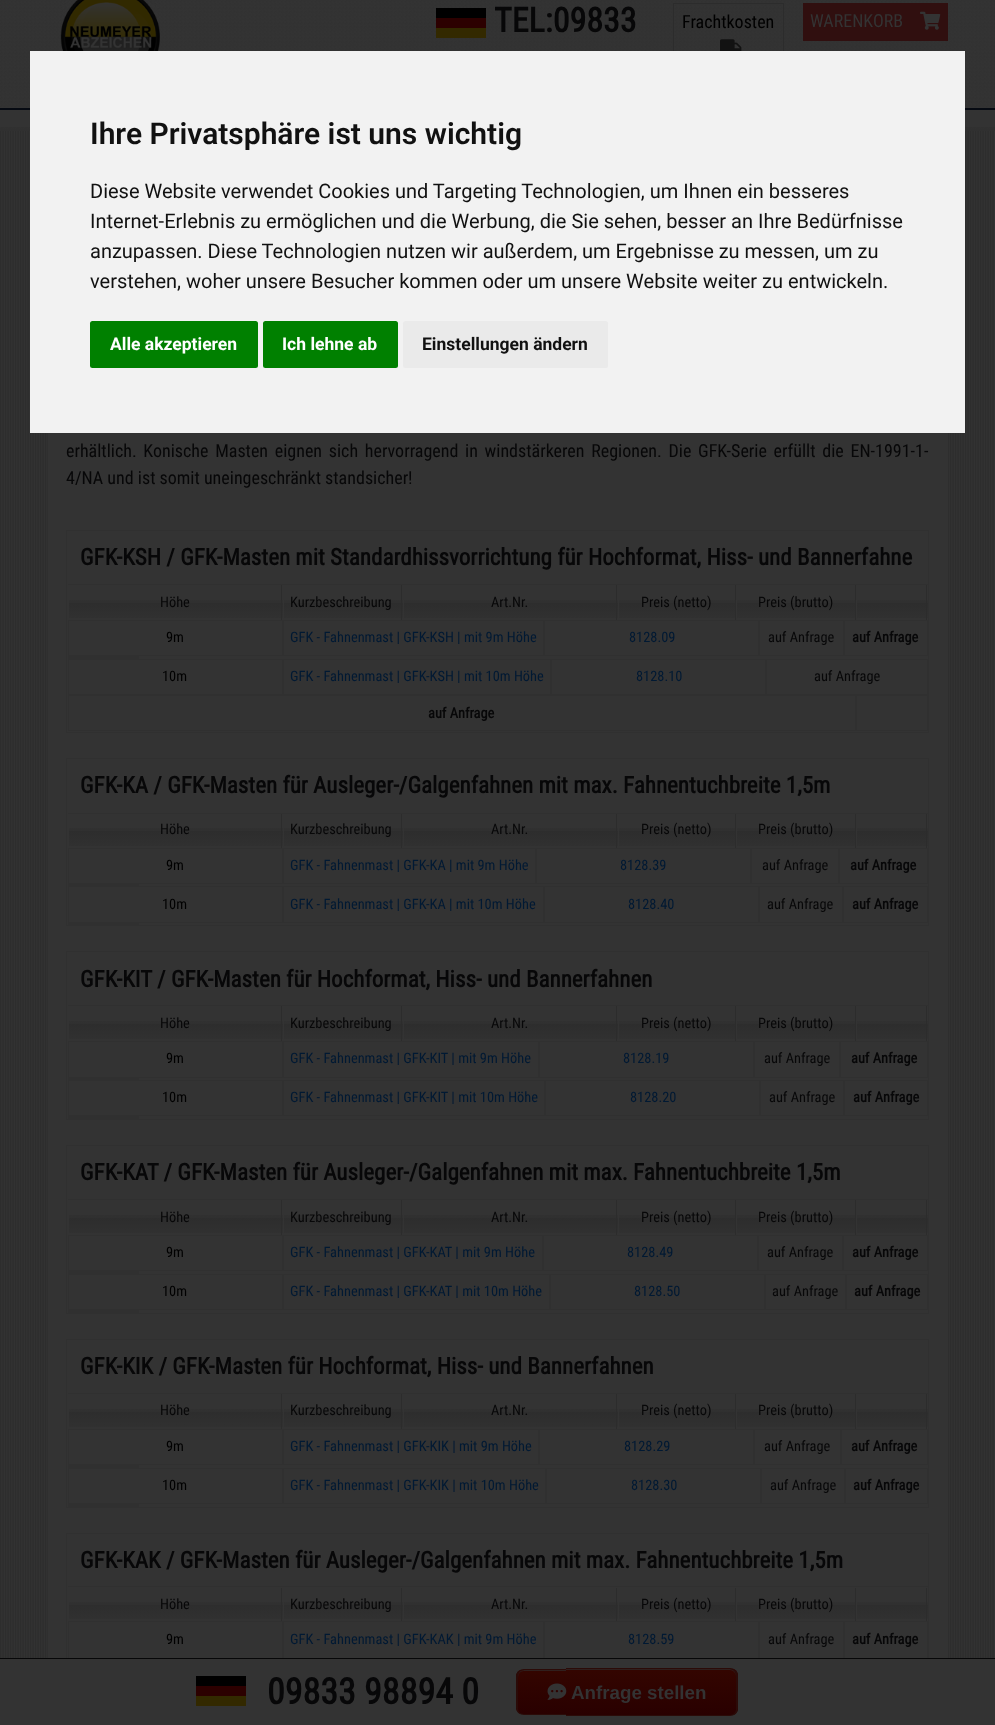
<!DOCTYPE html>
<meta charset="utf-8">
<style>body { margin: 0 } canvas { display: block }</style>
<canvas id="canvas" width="995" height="1725"></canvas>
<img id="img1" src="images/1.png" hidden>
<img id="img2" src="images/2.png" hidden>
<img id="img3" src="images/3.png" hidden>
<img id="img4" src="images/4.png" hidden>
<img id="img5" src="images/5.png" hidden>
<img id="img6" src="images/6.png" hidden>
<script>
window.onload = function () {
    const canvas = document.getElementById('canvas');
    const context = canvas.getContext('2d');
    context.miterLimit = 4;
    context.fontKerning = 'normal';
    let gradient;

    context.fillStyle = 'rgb(51, 51, 51)';
    context.fillRect(0, 0, 995, 1725);
    context.drawImage(document.getElementById('img1'), 0, 0, 995, 107);
    context.fillStyle = 'rgb(6, 10, 18)';
    context.fillRect(0, 108, 995, 2);
    context.drawImage(document.getElementById('img2'), 60, 0, 100, 51);
    context.fillStyle = 'rgb(0, 0, 0)';
    context.fillRect(436, 8, 50, 10);
    context.fillStyle = 'rgb(44, 0, 0)';
    context.fillRect(436, 18, 50, 10);
    context.fillStyle = 'rgb(51, 41, 0)';
    context.fillRect(436, 28, 50, 10);
    context.strokeStyle = 'rgb(44, 44, 44)';
    context.strokeRect(673.5, 3.5, 110, 67);
    context.drawImage(document.getElementById('img3'), 720, 39, 22, 12);
    context.fillStyle = 'rgb(48, 15, 15)';
    context.fillRect(803, 3, 145, 38);
    context.drawImage(document.getElementById('img4'), 920, 11, 21, 19);
    gradient = context.createLinearGradient(498, 110, 498, 130);
    gradient.addColorStop(0, 'rgb(51, 51, 51)');
    gradient.addColorStop(1, 'rgb(48, 48, 48)');
    context.fillStyle = gradient;
    context.fillRect(0, 127, 995, 3);
    context.fillStyle = 'rgb(48, 48, 48)';
    context.fillRect(0, 130, 995, 1);
    context.drawImage(document.getElementById('img5'), 0, 131, 994, 1527);
    context.fillStyle = 'rgb(242, 242, 242)';
    context.fillRect(30, 51, 935, 382);
    context.fillStyle = 'rgb(0, 128, 0)';
    context.beginPath();
    context.roundRect(90, 321, 168, 47, 2.5);
    context.fill();
    context.beginPath();
    context.roundRect(263, 321, 135, 47, 2.5);
    context.fill();
    context.fillStyle = 'rgb(234, 234, 234)';
    context.beginPath();
    context.roundRect(403, 321, 205, 47, 2.5);
    context.fill();
    context.fillStyle = 'rgb(51, 51, 51)';
    context.fillRect(48, 433, 900, 1225);
    context.strokeStyle = 'rgb(48, 48, 48)';
    context.strokeRect(66.5, 530.5, 862, 202);
    context.fillStyle = 'rgb(48, 48, 48)';
    context.fillRect(68, 584, 860, 1);
    gradient = context.createLinearGradient(175, 585, 175, 620);
    gradient.addColorStop(0, 'rgb(51, 51, 51)');
    gradient.addColorStop(0.5, 'rgb(48, 48, 48)');
    gradient.addColorStop(0.51, 'rgb(45, 45, 45)');
    gradient.addColorStop(1, 'rgb(49, 49, 49)');
    context.fillStyle = gradient;
    context.fillRect(69, 600, 214, 18);
    context.fillStyle = 'rgb(44, 44, 44)';
    context.fillRect(281, 585, 1, 35);
    gradient = context.createLinearGradient(343, 585, 343, 620);
    gradient.addColorStop(0, 'rgb(51, 51, 51)');
    gradient.addColorStop(0.5, 'rgb(48, 48, 48)');
    gradient.addColorStop(0.51, 'rgb(45, 45, 45)');
    gradient.addColorStop(1, 'rgb(49, 49, 49)');
    context.fillStyle = gradient;
    context.fillRect(284, 600, 119, 18);
    context.fillStyle = 'rgb(44, 44, 44)';
    context.fillRect(401, 585, 1, 35);
    gradient = context.createLinearGradient(510, 585, 510, 620);
    gradient.addColorStop(0, 'rgb(51, 51, 51)');
    gradient.addColorStop(0.5, 'rgb(48, 48, 48)');
    gradient.addColorStop(0.51, 'rgb(45, 45, 45)');
    gradient.addColorStop(1, 'rgb(49, 49, 49)');
    context.fillStyle = gradient;
    context.fillRect(404, 600, 214, 18);
    context.fillStyle = 'rgb(44, 44, 44)';
    context.fillRect(616, 585, 1, 35);
    gradient = context.createLinearGradient(677, 585, 677, 620);
    gradient.addColorStop(0, 'rgb(51, 51, 51)');
    gradient.addColorStop(0.5, 'rgb(48, 48, 48)');
    gradient.addColorStop(0.51, 'rgb(45, 45, 45)');
    gradient.addColorStop(1, 'rgb(49, 49, 49)');
    context.fillStyle = gradient;
    context.fillRect(619, 600, 116, 18);
    context.fillStyle = 'rgb(44, 44, 44)';
    context.fillRect(735, 585, 1, 35);
    gradient = context.createLinearGradient(796, 585, 796, 620);
    gradient.addColorStop(0, 'rgb(51, 51, 51)');
    gradient.addColorStop(0.5, 'rgb(48, 48, 48)');
    gradient.addColorStop(0.51, 'rgb(45, 45, 45)');
    gradient.addColorStop(1, 'rgb(49, 49, 49)');
    context.fillStyle = gradient;
    context.fillRect(737, 600, 118, 18);
    context.fillStyle = 'rgb(44, 44, 44)';
    context.fillRect(855, 585, 1, 35);
    gradient = context.createLinearGradient(892, 585, 892, 620);
    gradient.addColorStop(0, 'rgb(51, 51, 51)');
    gradient.addColorStop(0.5, 'rgb(48, 48, 48)');
    gradient.addColorStop(0.51, 'rgb(45, 45, 45)');
    gradient.addColorStop(1, 'rgb(49, 49, 49)');
    context.fillStyle = gradient;
    context.fillRect(857, 600, 71, 18);
    context.fillStyle = 'rgb(44, 44, 44)';
    context.fillRect(926, 585, 1, 35);
    context.strokeRect(68.5, 620.5, 214, 35);
    context.strokeRect(283.5, 620.5, 260, 35);
    context.strokeRect(544.5, 620.5, 214, 35);
    context.strokeRect(759.5, 620.5, 84, 35);
    context.strokeRect(844.5, 620.5, 83, 35);
    context.fillStyle = 'rgb(48, 48, 48)';
    context.fillRect(68, 656, 71, 3);
    context.strokeRect(68.5, 659.5, 214, 35);
    context.strokeRect(283.5, 659.5, 267, 35);
    context.strokeRect(551.5, 659.5, 214, 35);
    context.strokeRect(766.5, 659.5, 161, 35);
    context.strokeRect(68.5, 695.5, 787, 35);
    context.strokeRect(856.5, 695.5, 71, 35);
    context.strokeRect(66.5, 758.5, 862, 167);
    context.fillRect(68, 813, 860, 1);
    gradient = context.createLinearGradient(175, 814, 175, 848);
    gradient.addColorStop(0, 'rgb(51, 51, 51)');
    gradient.addColorStop(0.5, 'rgb(48, 48, 48)');
    gradient.addColorStop(0.51, 'rgb(45, 45, 45)');
    gradient.addColorStop(1, 'rgb(49, 49, 49)');
    context.fillStyle = gradient;
    context.fillRect(69, 828, 214, 18);
    context.fillStyle = 'rgb(44, 44, 44)';
    context.fillRect(281, 814, 1, 34);
    gradient = context.createLinearGradient(343, 814, 343, 848);
    gradient.addColorStop(0, 'rgb(51, 51, 51)');
    gradient.addColorStop(0.5, 'rgb(48, 48, 48)');
    gradient.addColorStop(0.51, 'rgb(45, 45, 45)');
    gradient.addColorStop(1, 'rgb(49, 49, 49)');
    context.fillStyle = gradient;
    context.fillRect(284, 828, 119, 18);
    context.fillStyle = 'rgb(44, 44, 44)';
    context.fillRect(401, 814, 1, 34);
    gradient = context.createLinearGradient(510, 814, 510, 848);
    gradient.addColorStop(0, 'rgb(51, 51, 51)');
    gradient.addColorStop(0.5, 'rgb(48, 48, 48)');
    gradient.addColorStop(0.51, 'rgb(45, 45, 45)');
    gradient.addColorStop(1, 'rgb(49, 49, 49)');
    context.fillStyle = gradient;
    context.fillRect(404, 828, 214, 18);
    context.fillStyle = 'rgb(44, 44, 44)';
    context.fillRect(616, 814, 1, 34);
    gradient = context.createLinearGradient(677, 814, 677, 848);
    gradient.addColorStop(0, 'rgb(51, 51, 51)');
    gradient.addColorStop(0.5, 'rgb(48, 48, 48)');
    gradient.addColorStop(0.51, 'rgb(45, 45, 45)');
    gradient.addColorStop(1, 'rgb(49, 49, 49)');
    context.fillStyle = gradient;
    context.fillRect(619, 828, 116, 18);
    context.fillStyle = 'rgb(44, 44, 44)';
    context.fillRect(735, 814, 1, 34);
    gradient = context.createLinearGradient(796, 814, 796, 848);
    gradient.addColorStop(0, 'rgb(51, 51, 51)');
    gradient.addColorStop(0.5, 'rgb(48, 48, 48)');
    gradient.addColorStop(0.51, 'rgb(45, 45, 45)');
    gradient.addColorStop(1, 'rgb(49, 49, 49)');
    context.fillStyle = gradient;
    context.fillRect(737, 828, 118, 18);
    context.fillStyle = 'rgb(44, 44, 44)';
    context.fillRect(855, 814, 1, 34);
    gradient = context.createLinearGradient(892, 814, 892, 848);
    gradient.addColorStop(0, 'rgb(51, 51, 51)');
    gradient.addColorStop(0.5, 'rgb(48, 48, 48)');
    gradient.addColorStop(0.51, 'rgb(45, 45, 45)');
    gradient.addColorStop(1, 'rgb(49, 49, 49)');
    context.fillStyle = gradient;
    context.fillRect(857, 828, 71, 18);
    context.fillStyle = 'rgb(44, 44, 44)';
    context.fillRect(926, 814, 1, 34);
    context.strokeRect(68.5, 848.5, 214, 35);
    context.strokeRect(283.5, 848.5, 252, 35);
    context.strokeRect(536.5, 848.5, 214, 35);
    context.strokeRect(751.5, 848.5, 87, 35);
    context.strokeRect(839.5, 848.5, 88, 35);
    context.fillStyle = 'rgb(48, 48, 48)';
    context.fillRect(68, 884, 71, 2);
    context.strokeRect(68.5, 886.5, 214, 36);
    context.strokeRect(283.5, 886.5, 260, 36);
    context.strokeRect(544.5, 886.5, 214, 36);
    context.strokeRect(759.5, 886.5, 83, 36);
    context.strokeRect(843.5, 886.5, 84, 36);
    context.fillRect(68, 923, 71, 2);
    context.strokeRect(66.5, 951.5, 862, 168);
    context.fillRect(68, 1005, 860, 1);
    gradient = context.createLinearGradient(175, 1006, 175, 1041);
    gradient.addColorStop(0, 'rgb(51, 51, 51)');
    gradient.addColorStop(0.5, 'rgb(48, 48, 48)');
    gradient.addColorStop(0.51, 'rgb(45, 45, 45)');
    gradient.addColorStop(1, 'rgb(49, 49, 49)');
    context.fillStyle = gradient;
    context.fillRect(69, 1021, 214, 18);
    context.fillStyle = 'rgb(44, 44, 44)';
    context.fillRect(281, 1006, 1, 35);
    gradient = context.createLinearGradient(343, 1006, 343, 1041);
    gradient.addColorStop(0, 'rgb(51, 51, 51)');
    gradient.addColorStop(0.5, 'rgb(48, 48, 48)');
    gradient.addColorStop(0.51, 'rgb(45, 45, 45)');
    gradient.addColorStop(1, 'rgb(49, 49, 49)');
    context.fillStyle = gradient;
    context.fillRect(284, 1021, 119, 18);
    context.fillStyle = 'rgb(44, 44, 44)';
    context.fillRect(401, 1006, 1, 35);
    gradient = context.createLinearGradient(510, 1006, 510, 1041);
    gradient.addColorStop(0, 'rgb(51, 51, 51)');
    gradient.addColorStop(0.5, 'rgb(48, 48, 48)');
    gradient.addColorStop(0.51, 'rgb(45, 45, 45)');
    gradient.addColorStop(1, 'rgb(49, 49, 49)');
    context.fillStyle = gradient;
    context.fillRect(404, 1021, 214, 18);
    context.fillStyle = 'rgb(44, 44, 44)';
    context.fillRect(616, 1006, 1, 35);
    gradient = context.createLinearGradient(677, 1006, 677, 1041);
    gradient.addColorStop(0, 'rgb(51, 51, 51)');
    gradient.addColorStop(0.5, 'rgb(48, 48, 48)');
    gradient.addColorStop(0.51, 'rgb(45, 45, 45)');
    gradient.addColorStop(1, 'rgb(49, 49, 49)');
    context.fillStyle = gradient;
    context.fillRect(619, 1021, 116, 18);
    context.fillStyle = 'rgb(44, 44, 44)';
    context.fillRect(735, 1006, 1, 35);
    gradient = context.createLinearGradient(796, 1006, 796, 1041);
    gradient.addColorStop(0, 'rgb(51, 51, 51)');
    gradient.addColorStop(0.5, 'rgb(48, 48, 48)');
    gradient.addColorStop(0.51, 'rgb(45, 45, 45)');
    gradient.addColorStop(1, 'rgb(49, 49, 49)');
    context.fillStyle = gradient;
    context.fillRect(737, 1021, 118, 18);
    context.fillStyle = 'rgb(44, 44, 44)';
    context.fillRect(855, 1006, 1, 35);
    gradient = context.createLinearGradient(892, 1006, 892, 1041);
    gradient.addColorStop(0, 'rgb(51, 51, 51)');
    gradient.addColorStop(0.5, 'rgb(48, 48, 48)');
    gradient.addColorStop(0.51, 'rgb(45, 45, 45)');
    gradient.addColorStop(1, 'rgb(49, 49, 49)');
    context.fillStyle = gradient;
    context.fillRect(857, 1021, 71, 18);
    context.fillStyle = 'rgb(44, 44, 44)';
    context.fillRect(926, 1006, 1, 35);
    context.strokeRect(68.5, 1041.5, 214, 36);
    context.strokeRect(283.5, 1041.5, 255, 36);
    context.strokeRect(539.5, 1041.5, 214, 36);
    context.strokeRect(754.5, 1041.5, 85, 36);
    context.strokeRect(840.5, 1041.5, 87, 36);
    context.fillStyle = 'rgb(48, 48, 48)';
    context.fillRect(68, 1078, 71, 2);
    context.strokeRect(68.5, 1080.5, 214, 35);
    context.strokeRect(283.5, 1080.5, 261, 35);
    context.strokeRect(545.5, 1080.5, 214, 35);
    context.strokeRect(760.5, 1080.5, 83, 35);
    context.strokeRect(844.5, 1080.5, 83, 35);
    context.fillRect(68, 1116, 71, 3);
    context.strokeRect(66.5, 1145.5, 862, 168);
    context.fillRect(68, 1199, 860, 1);
    gradient = context.createLinearGradient(175, 1200, 175, 1235);
    gradient.addColorStop(0, 'rgb(51, 51, 51)');
    gradient.addColorStop(0.5, 'rgb(48, 48, 48)');
    gradient.addColorStop(0.51, 'rgb(45, 45, 45)');
    gradient.addColorStop(1, 'rgb(49, 49, 49)');
    context.fillStyle = gradient;
    context.fillRect(69, 1215, 214, 18);
    context.fillStyle = 'rgb(44, 44, 44)';
    context.fillRect(281, 1200, 1, 35);
    gradient = context.createLinearGradient(343, 1200, 343, 1235);
    gradient.addColorStop(0, 'rgb(51, 51, 51)');
    gradient.addColorStop(0.5, 'rgb(48, 48, 48)');
    gradient.addColorStop(0.51, 'rgb(45, 45, 45)');
    gradient.addColorStop(1, 'rgb(49, 49, 49)');
    context.fillStyle = gradient;
    context.fillRect(284, 1215, 119, 18);
    context.fillStyle = 'rgb(44, 44, 44)';
    context.fillRect(401, 1200, 1, 35);
    gradient = context.createLinearGradient(510, 1200, 510, 1235);
    gradient.addColorStop(0, 'rgb(51, 51, 51)');
    gradient.addColorStop(0.5, 'rgb(48, 48, 48)');
    gradient.addColorStop(0.51, 'rgb(45, 45, 45)');
    gradient.addColorStop(1, 'rgb(49, 49, 49)');
    context.fillStyle = gradient;
    context.fillRect(404, 1215, 214, 18);
    context.fillStyle = 'rgb(44, 44, 44)';
    context.fillRect(616, 1200, 1, 35);
    gradient = context.createLinearGradient(677, 1200, 677, 1235);
    gradient.addColorStop(0, 'rgb(51, 51, 51)');
    gradient.addColorStop(0.5, 'rgb(48, 48, 48)');
    gradient.addColorStop(0.51, 'rgb(45, 45, 45)');
    gradient.addColorStop(1, 'rgb(49, 49, 49)');
    context.fillStyle = gradient;
    context.fillRect(619, 1215, 116, 18);
    context.fillStyle = 'rgb(44, 44, 44)';
    context.fillRect(735, 1200, 1, 35);
    gradient = context.createLinearGradient(796, 1200, 796, 1235);
    gradient.addColorStop(0, 'rgb(51, 51, 51)');
    gradient.addColorStop(0.5, 'rgb(48, 48, 48)');
    gradient.addColorStop(0.51, 'rgb(45, 45, 45)');
    gradient.addColorStop(1, 'rgb(49, 49, 49)');
    context.fillStyle = gradient;
    context.fillRect(737, 1215, 118, 18);
    context.fillStyle = 'rgb(44, 44, 44)';
    context.fillRect(855, 1200, 1, 35);
    gradient = context.createLinearGradient(892, 1200, 892, 1235);
    gradient.addColorStop(0, 'rgb(51, 51, 51)');
    gradient.addColorStop(0.5, 'rgb(48, 48, 48)');
    gradient.addColorStop(0.51, 'rgb(45, 45, 45)');
    gradient.addColorStop(1, 'rgb(49, 49, 49)');
    context.fillStyle = gradient;
    context.fillRect(857, 1215, 71, 18);
    context.fillStyle = 'rgb(44, 44, 44)';
    context.fillRect(926, 1200, 1, 35);
    context.strokeRect(68.5, 1235.5, 214, 35);
    context.strokeRect(283.5, 1235.5, 259, 35);
    context.strokeRect(543.5, 1235.5, 214, 35);
    context.strokeRect(758.5, 1235.5, 84, 35);
    context.strokeRect(843.5, 1235.5, 84, 35);
    context.fillStyle = 'rgb(48, 48, 48)';
    context.fillRect(68, 1271, 71, 3);
    context.strokeRect(68.5, 1274.5, 214, 35);
    context.strokeRect(283.5, 1274.5, 266, 35);
    context.strokeRect(550.5, 1274.5, 214, 35);
    context.strokeRect(765.5, 1274.5, 80, 35);
    context.strokeRect(846.5, 1274.5, 81, 35);
    context.fillRect(68, 1310, 71, 3);
    context.strokeRect(66.5, 1339.5, 862, 168);
    context.fillRect(68, 1393, 860, 1);
    gradient = context.createLinearGradient(175, 1394, 175, 1429);
    gradient.addColorStop(0, 'rgb(51, 51, 51)');
    gradient.addColorStop(0.5, 'rgb(48, 48, 48)');
    gradient.addColorStop(0.51, 'rgb(45, 45, 45)');
    gradient.addColorStop(1, 'rgb(49, 49, 49)');
    context.fillStyle = gradient;
    context.fillRect(69, 1409, 214, 18);
    context.fillStyle = 'rgb(44, 44, 44)';
    context.fillRect(281, 1394, 1, 35);
    gradient = context.createLinearGradient(343, 1394, 343, 1429);
    gradient.addColorStop(0, 'rgb(51, 51, 51)');
    gradient.addColorStop(0.5, 'rgb(48, 48, 48)');
    gradient.addColorStop(0.51, 'rgb(45, 45, 45)');
    gradient.addColorStop(1, 'rgb(49, 49, 49)');
    context.fillStyle = gradient;
    context.fillRect(284, 1409, 119, 18);
    context.fillStyle = 'rgb(44, 44, 44)';
    context.fillRect(401, 1394, 1, 35);
    gradient = context.createLinearGradient(510, 1394, 510, 1429);
    gradient.addColorStop(0, 'rgb(51, 51, 51)');
    gradient.addColorStop(0.5, 'rgb(48, 48, 48)');
    gradient.addColorStop(0.51, 'rgb(45, 45, 45)');
    gradient.addColorStop(1, 'rgb(49, 49, 49)');
    context.fillStyle = gradient;
    context.fillRect(404, 1409, 214, 18);
    context.fillStyle = 'rgb(44, 44, 44)';
    context.fillRect(616, 1394, 1, 35);
    gradient = context.createLinearGradient(677, 1394, 677, 1429);
    gradient.addColorStop(0, 'rgb(51, 51, 51)');
    gradient.addColorStop(0.5, 'rgb(48, 48, 48)');
    gradient.addColorStop(0.51, 'rgb(45, 45, 45)');
    gradient.addColorStop(1, 'rgb(49, 49, 49)');
    context.fillStyle = gradient;
    context.fillRect(619, 1409, 116, 18);
    context.fillStyle = 'rgb(44, 44, 44)';
    context.fillRect(735, 1394, 1, 35);
    gradient = context.createLinearGradient(796, 1394, 796, 1429);
    gradient.addColorStop(0, 'rgb(51, 51, 51)');
    gradient.addColorStop(0.5, 'rgb(48, 48, 48)');
    gradient.addColorStop(0.51, 'rgb(45, 45, 45)');
    gradient.addColorStop(1, 'rgb(49, 49, 49)');
    context.fillStyle = gradient;
    context.fillRect(737, 1409, 118, 18);
    context.fillStyle = 'rgb(44, 44, 44)';
    context.fillRect(855, 1394, 1, 35);
    gradient = context.createLinearGradient(892, 1394, 892, 1429);
    gradient.addColorStop(0, 'rgb(51, 51, 51)');
    gradient.addColorStop(0.5, 'rgb(48, 48, 48)');
    gradient.addColorStop(0.51, 'rgb(45, 45, 45)');
    gradient.addColorStop(1, 'rgb(49, 49, 49)');
    context.fillStyle = gradient;
    context.fillRect(857, 1409, 71, 18);
    context.fillStyle = 'rgb(44, 44, 44)';
    context.fillRect(926, 1394, 1, 35);
    context.strokeRect(68.5, 1429.5, 214, 35);
    context.strokeRect(283.5, 1429.5, 255, 35);
    context.strokeRect(539.5, 1429.5, 214, 35);
    context.strokeRect(754.5, 1429.5, 86, 35);
    context.strokeRect(841.5, 1429.5, 86, 35);
    context.fillStyle = 'rgb(48, 48, 48)';
    context.fillRect(68, 1465, 71, 3);
    context.strokeRect(68.5, 1468.5, 214, 35);
    context.strokeRect(283.5, 1468.5, 262, 35);
    context.strokeRect(546.5, 1468.5, 214, 35);
    context.strokeRect(761.5, 1468.5, 83, 35);
    context.strokeRect(845.5, 1468.5, 82, 35);
    context.fillRect(68, 1504, 71, 3);
    context.strokeRect(66.5, 1533.5, 862, 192);
    context.fillRect(68, 1586, 860, 1);
    gradient = context.createLinearGradient(175, 1588, 175, 1621);
    gradient.addColorStop(0, 'rgb(51, 51, 51)');
    gradient.addColorStop(0.5, 'rgb(48, 48, 48)');
    gradient.addColorStop(0.51, 'rgb(45, 45, 45)');
    gradient.addColorStop(1, 'rgb(49, 49, 49)');
    context.fillStyle = gradient;
    context.fillRect(69, 1602, 214, 17);
    context.fillStyle = 'rgb(44, 44, 44)';
    context.fillRect(281, 1588, 1, 33);
    gradient = context.createLinearGradient(343, 1588, 343, 1621);
    gradient.addColorStop(0, 'rgb(51, 51, 51)');
    gradient.addColorStop(0.5, 'rgb(48, 48, 48)');
    gradient.addColorStop(0.51, 'rgb(45, 45, 45)');
    gradient.addColorStop(1, 'rgb(49, 49, 49)');
    context.fillStyle = gradient;
    context.fillRect(284, 1602, 119, 17);
    context.fillStyle = 'rgb(44, 44, 44)';
    context.fillRect(401, 1588, 1, 33);
    gradient = context.createLinearGradient(510, 1588, 510, 1621);
    gradient.addColorStop(0, 'rgb(51, 51, 51)');
    gradient.addColorStop(0.5, 'rgb(48, 48, 48)');
    gradient.addColorStop(0.51, 'rgb(45, 45, 45)');
    gradient.addColorStop(1, 'rgb(49, 49, 49)');
    context.fillStyle = gradient;
    context.fillRect(404, 1602, 214, 17);
    context.fillStyle = 'rgb(44, 44, 44)';
    context.fillRect(616, 1588, 1, 33);
    gradient = context.createLinearGradient(677, 1588, 677, 1621);
    gradient.addColorStop(0, 'rgb(51, 51, 51)');
    gradient.addColorStop(0.5, 'rgb(48, 48, 48)');
    gradient.addColorStop(0.51, 'rgb(45, 45, 45)');
    gradient.addColorStop(1, 'rgb(49, 49, 49)');
    context.fillStyle = gradient;
    context.fillRect(619, 1602, 116, 17);
    context.fillStyle = 'rgb(44, 44, 44)';
    context.fillRect(735, 1588, 1, 33);
    gradient = context.createLinearGradient(796, 1588, 796, 1621);
    gradient.addColorStop(0, 'rgb(51, 51, 51)');
    gradient.addColorStop(0.5, 'rgb(48, 48, 48)');
    gradient.addColorStop(0.51, 'rgb(45, 45, 45)');
    gradient.addColorStop(1, 'rgb(49, 49, 49)');
    context.fillStyle = gradient;
    context.fillRect(737, 1602, 118, 17);
    context.fillStyle = 'rgb(44, 44, 44)';
    context.fillRect(855, 1588, 1, 33);
    gradient = context.createLinearGradient(892, 1588, 892, 1621);
    gradient.addColorStop(0, 'rgb(51, 51, 51)');
    gradient.addColorStop(0.5, 'rgb(48, 48, 48)');
    gradient.addColorStop(0.51, 'rgb(45, 45, 45)');
    gradient.addColorStop(1, 'rgb(49, 49, 49)');
    context.fillStyle = gradient;
    context.fillRect(857, 1602, 71, 17);
    context.fillStyle = 'rgb(44, 44, 44)';
    context.fillRect(926, 1588, 1, 33);
    context.strokeRect(68.5, 1621.5, 214, 37);
    context.strokeRect(283.5, 1621.5, 260, 37);
    context.strokeRect(544.5, 1621.5, 214, 37);
    context.strokeRect(759.5, 1621.5, 84, 37);
    context.strokeRect(844.5, 1621.5, 83, 37);
    context.fillStyle = 'rgb(51, 51, 51)';
    context.fillRect(66, 1659, 863, 66);
    context.fillStyle = 'rgb(7, 7, 8)';
    context.fillRect(0, 1658, 995, 1);
    context.fillStyle = 'rgb(0, 0, 0)';
    context.fillRect(196, 1676, 50, 10);
    context.fillStyle = 'rgb(44, 0, 0)';
    context.fillRect(196, 1686, 50, 10);
    context.fillStyle = 'rgb(51, 41, 0)';
    context.fillRect(196, 1696, 50, 10);
    context.save();
    context.beginPath();
    context.roundRect(516, 1669, 50, 46, [8, 0, 0, 8]);
    context.clip();
    gradient = context.createLinearGradient(542, 1670, 542, 1714);
    gradient.addColorStop(0.05, 'rgb(51, 5, 0)');
    gradient.addColorStop(1, 'rgb(41, 0, 0)');
    context.fillStyle = gradient;
    context.fillRect(516, 1670, 50, 44);
    context.restore();
    context.fillStyle = 'rgb(48, 31, 29)';
    context.beginPath();
    context.moveTo(524, 1671);
    context.lineTo(566, 1671);
    context.lineTo(566, 1670);
    context.lineTo(524, 1670);
    context.bezierCurveTo(521, 1670, 518, 1673, 518, 1676);
    context.lineTo(518, 1678);
    context.bezierCurveTo(518, 1674, 520, 1671, 524, 1671);
    context.closePath();
    context.fill();
    context.fillStyle = 'rgb(43, 11, 8)';
    context.beginPath();
    context.moveTo(524, 1669);
    context.lineTo(566, 1669);
    context.lineTo(566, 1715);
    context.lineTo(524, 1715);
    context.bezierCurveTo(520, 1715, 516, 1712, 516, 1708);
    context.lineTo(516, 1676);
    context.bezierCurveTo(516, 1672, 520, 1669, 524, 1669);
    context.closePath();
    context.moveTo(524, 1670);
    context.lineTo(566, 1670);
    context.lineTo(566, 1714);
    context.lineTo(524, 1714);
    context.bezierCurveTo(520, 1714, 518, 1711, 518, 1708);
    context.lineTo(518, 1676);
    context.bezierCurveTo(518, 1673, 520, 1670, 524, 1670);
    context.closePath();
    context.fill('evenodd');
    context.save();
    context.beginPath();
    context.roundRect(566, 1668, 172, 48, [0, 8, 8, 0]);
    context.clip();
    gradient = context.createLinearGradient(651, 1669, 651, 1715);
    gradient.addColorStop(0.05, 'rgb(51, 5, 0)');
    gradient.addColorStop(1, 'rgb(41, 0, 0)');
    context.fillStyle = gradient;
    context.fillRect(566, 1669, 172, 46);
    context.restore();
    context.fillStyle = 'rgb(48, 31, 29)';
    context.beginPath();
    context.moveTo(566, 1670);
    context.lineTo(730, 1670);
    context.bezierCurveTo(733, 1670, 736, 1673, 736, 1676);
    context.lineTo(736, 1675);
    context.bezierCurveTo(736, 1672, 733, 1669, 730, 1669);
    context.lineTo(566, 1669);
    context.closePath();
    context.fill();
    context.fillStyle = 'rgb(43, 11, 8)';
    context.beginPath();
    context.moveTo(566, 1668);
    context.lineTo(730, 1668);
    context.bezierCurveTo(734, 1668, 738, 1671, 738, 1675);
    context.lineTo(738, 1709);
    context.bezierCurveTo(738, 1713, 734, 1716, 730, 1716);
    context.lineTo(566, 1716);
    context.closePath();
    context.moveTo(566, 1669);
    context.lineTo(730, 1669);
    context.bezierCurveTo(733, 1669, 736, 1672, 736, 1675);
    context.lineTo(736, 1709);
    context.bezierCurveTo(736, 1712, 733, 1715, 730, 1715);
    context.lineTo(566, 1715);
    context.closePath();
    context.fill('evenodd');
    context.drawImage(document.getElementById('img6'), 547, 1683, 20, 17);
    context.font = 'bold 34px Roboto Condensed';
    context.fillStyle = 'rgb(7, 7, 8)';
    context.fillText('TEL:09833', 494, 32);
    context.font = '18px Roboto Condensed';
    context.fillStyle = 'rgb(0, 0, 0)';
    context.fillText('Frachtkosten', 682, 28);
    context.fillStyle = 'rgb(51, 51, 51)';
    context.fillText('WARENKORB', 810, 27);
    context.font = '600 30px Roboto';
    context.fillStyle = 'rgb(17, 17, 17)';
    context.fillText('Ihre Privatsphäre ist uns wichtig', 90, 144);
    context.font = '20px Roboto';
    context.fillText('Diese Website verwendet Cookies und Targeting Technologien, um Ihnen ein besseres', 90, 198);
    context.fillText('Internet-Erlebnis zu ermöglichen und die Werbung, die Sie sehen, besser an Ihre Bedürfnisse', 90, 228);
    context.fillText('anzupassen. Diese Technologien nutzen wir außerdem, um Ergebnisse zu messen, um zu', 90, 258);
    context.fillText('verstehen, woher unsere Besucher kommen oder um unsere Website weiter zu entwickeln.', 90, 288);
    context.font = 'bold 17.5px Roboto';
    context.fillStyle = 'rgb(255, 255, 255)';
    context.fillText('Alle akzeptieren', 110, 350);
    context.fillText('Ich lehne ab', 282, 350);
    context.fillStyle = 'rgb(17, 17, 17)';
    context.fillText('Einstellungen ändern', 422, 350);
    context.wordSpacing = '2.6px';
    context.font = '18px Roboto Condensed';
    context.fillStyle = 'rgb(7, 7, 8)';
    context.fillText('erhältlich. Konische Masten eignen sich hervorragend in windstärkeren Regionen. Die GFK-Serie erfüllt die EN-1991-1-', 66, 457);
    context.wordSpacing = '0px';
    context.fillText('4/NA und ist somit uneingeschränkt standsicher!', 66, 484);
    context.font = 'bold 23.05px Roboto Condensed';
    context.fillText('GFK-KSH / GFK-Masten mit Standardhissvorrichtung für Hochformat, Hiss- und Bannerfahne', 80, 565);
    context.font = '14.4px Roboto Condensed';
    context.fillText('Höhe', 160, 607);
    context.fillText('Kurzbeschreibung', 290, 607);
    context.fillText('Art.Nr.', 491, 607);
    context.fillText('Preis (netto)', 641, 607);
    context.fillText('Preis (brutto)', 758, 607);
    context.fillStyle = 'rgb(0, 0, 0)';
    context.fillText('9m', 166, 642);
    context.fillStyle = 'rgb(0, 25, 51)';
    context.fillText('GFK - Fahnenmast | GFK-KSH | mit 9m Höhe', 290, 642);
    context.fillText('8128.09', 629, 642);
    context.fillStyle = 'rgb(7, 7, 8)';
    context.fillText('auf Anfrage', 768, 642);
    context.font = 'bold 14.4px Roboto Condensed';
    context.fillText('auf Anfrage', 852, 642);
    context.font = '14.4px Roboto Condensed';
    context.fillStyle = 'rgb(0, 0, 0)';
    context.fillText('10m', 162, 681);
    context.fillStyle = 'rgb(0, 25, 51)';
    context.fillText('GFK - Fahnenmast | GFK-KSH | mit 10m Höhe', 290, 681);
    context.fillText('8128.10', 636, 681);
    context.fillStyle = 'rgb(7, 7, 8)';
    context.fillText('auf Anfrage', 814, 681);
    context.font = 'bold 14.4px Roboto Condensed';
    context.fillText('auf Anfrage', 428, 718);
    context.font = 'bold 23.05px Roboto Condensed';
    context.fillText('GFK-KA / GFK-Masten für Ausleger-/Galgenfahnen mit max. Fahnentuchbreite 1,5m', 80, 793);
    context.font = '14.4px Roboto Condensed';
    context.fillText('Höhe', 160, 834);
    context.fillText('Kurzbeschreibung', 290, 834);
    context.fillText('Art.Nr.', 491, 834);
    context.fillText('Preis (netto)', 641, 834);
    context.fillText('Preis (brutto)', 758, 834);
    context.fillStyle = 'rgb(0, 0, 0)';
    context.fillText('9m', 166, 870);
    context.fillStyle = 'rgb(0, 25, 51)';
    context.fillText('GFK - Fahnenmast | GFK-KA | mit 9m Höhe', 290, 870);
    context.fillText('8128.39', 620, 870);
    context.fillStyle = 'rgb(7, 7, 8)';
    context.fillText('auf Anfrage', 762, 870);
    context.font = 'bold 14.4px Roboto Condensed';
    context.fillText('auf Anfrage', 850, 870);
    context.font = '14.4px Roboto Condensed';
    context.fillStyle = 'rgb(0, 0, 0)';
    context.fillText('10m', 162, 909);
    context.fillStyle = 'rgb(0, 25, 51)';
    context.fillText('GFK - Fahnenmast | GFK-KA | mit 10m Höhe', 290, 909);
    context.fillText('8128.40', 628, 909);
    context.fillStyle = 'rgb(7, 7, 8)';
    context.fillText('auf Anfrage', 767, 909);
    context.font = 'bold 14.4px Roboto Condensed';
    context.fillText('auf Anfrage', 852, 909);
    context.font = 'bold 23.05px Roboto Condensed';
    context.fillText('GFK-KIT / GFK-Masten für Hochformat, Hiss- und Bannerfahnen', 80, 987);
    context.font = '14.4px Roboto Condensed';
    context.fillText('Höhe', 160, 1028);
    context.fillText('Kurzbeschreibung', 290, 1028);
    context.fillText('Art.Nr.', 491, 1028);
    context.fillText('Preis (netto)', 641, 1028);
    context.fillText('Preis (brutto)', 758, 1028);
    context.fillStyle = 'rgb(0, 0, 0)';
    context.fillText('9m', 166, 1063);
    context.fillStyle = 'rgb(0, 25, 51)';
    context.fillText('GFK - Fahnenmast | GFK-KIT | mit 9m Höhe', 290, 1063);
    context.fillText('8128.19', 623, 1063);
    context.fillStyle = 'rgb(7, 7, 8)';
    context.fillText('auf Anfrage', 764, 1063);
    context.font = 'bold 14.4px Roboto Condensed';
    context.fillText('auf Anfrage', 851, 1063);
    context.font = '14.4px Roboto Condensed';
    context.fillStyle = 'rgb(0, 0, 0)';
    context.fillText('10m', 162, 1102);
    context.fillStyle = 'rgb(0, 25, 51)';
    context.fillText('GFK - Fahnenmast | GFK-KIT | mit 10m Höhe', 290, 1102);
    context.fillText('8128.20', 630, 1102);
    context.fillStyle = 'rgb(7, 7, 8)';
    context.fillText('auf Anfrage', 769, 1102);
    context.font = 'bold 14.4px Roboto Condensed';
    context.fillText('auf Anfrage', 853, 1102);
    context.font = 'bold 23.05px Roboto Condensed';
    context.fillText('GFK-KAT / GFK-Masten für Ausleger-/Galgenfahnen mit max. Fahnentuchbreite 1,5m', 80, 1180);
    context.font = '14.4px Roboto Condensed';
    context.fillText('Höhe', 160, 1222);
    context.fillText('Kurzbeschreibung', 290, 1222);
    context.fillText('Art.Nr.', 491, 1222);
    context.fillText('Preis (netto)', 641, 1222);
    context.fillText('Preis (brutto)', 758, 1222);
    context.fillStyle = 'rgb(0, 0, 0)';
    context.fillText('9m', 166, 1257);
    context.fillStyle = 'rgb(0, 25, 51)';
    context.fillText('GFK - Fahnenmast | GFK-KAT | mit 9m Höhe', 290, 1257);
    context.fillText('8128.49', 627, 1257);
    context.fillStyle = 'rgb(7, 7, 8)';
    context.fillText('auf Anfrage', 767, 1257);
    context.font = 'bold 14.4px Roboto Condensed';
    context.fillText('auf Anfrage', 852, 1257);
    context.font = '14.4px Roboto Condensed';
    context.fillStyle = 'rgb(0, 0, 0)';
    context.fillText('10m', 162, 1296);
    context.fillStyle = 'rgb(0, 25, 51)';
    context.fillText('GFK - Fahnenmast | GFK-KAT | mit 10m Höhe', 290, 1296);
    context.fillText('8128.50', 634, 1296);
    context.fillStyle = 'rgb(7, 7, 8)';
    context.fillText('auf Anfrage', 772, 1296);
    context.font = 'bold 14.4px Roboto Condensed';
    context.fillText('auf Anfrage', 854, 1296);
    context.font = 'bold 23.05px Roboto Condensed';
    context.fillText('GFK-KIK / GFK-Masten für Hochformat, Hiss- und Bannerfahnen', 80, 1374);
    context.font = '14.4px Roboto Condensed';
    context.fillText('Höhe', 160, 1415);
    context.fillText('Kurzbeschreibung', 290, 1415);
    context.fillText('Art.Nr.', 491, 1415);
    context.fillText('Preis (netto)', 641, 1415);
    context.fillText('Preis (brutto)', 758, 1415);
    context.fillStyle = 'rgb(0, 0, 0)';
    context.fillText('9m', 166, 1451);
    context.fillStyle = 'rgb(0, 25, 51)';
    context.fillText('GFK - Fahnenmast | GFK-KIK | mit 9m Höhe', 290, 1451);
    context.fillText('8128.29', 624, 1451);
    context.fillStyle = 'rgb(7, 7, 8)';
    context.fillText('auf Anfrage', 764, 1451);
    context.font = 'bold 14.4px Roboto Condensed';
    context.fillText('auf Anfrage', 851, 1451);
    context.font = '14.4px Roboto Condensed';
    context.fillStyle = 'rgb(0, 0, 0)';
    context.fillText('10m', 162, 1490);
    context.fillStyle = 'rgb(0, 25, 51)';
    context.fillText('GFK - Fahnenmast | GFK-KIK | mit 10m Höhe', 290, 1490);
    context.fillText('8128.30', 631, 1490);
    context.fillStyle = 'rgb(7, 7, 8)';
    context.fillText('auf Anfrage', 770, 1490);
    context.font = 'bold 14.4px Roboto Condensed';
    context.fillText('auf Anfrage', 853, 1490);
    context.font = 'bold 23.05px Roboto Condensed';
    context.fillText('GFK-KAK / GFK-Masten für Ausleger-/Galgenfahnen mit max. Fahnentuchbreite 1,5m', 80, 1568);
    context.font = '14.4px Roboto Condensed';
    context.fillText('Höhe', 160, 1609);
    context.fillText('Kurzbeschreibung', 290, 1609);
    context.fillText('Art.Nr.', 491, 1609);
    context.fillText('Preis (netto)', 641, 1609);
    context.fillText('Preis (brutto)', 758, 1609);
    context.fillStyle = 'rgb(0, 0, 0)';
    context.fillText('9m', 166, 1644);
    context.fillStyle = 'rgb(0, 25, 51)';
    context.fillText('GFK - Fahnenmast | GFK-KAK | mit 9m Höhe', 290, 1644);
    context.fillText('8128.59', 628, 1644);
    context.fillStyle = 'rgb(7, 7, 8)';
    context.fillText('auf Anfrage', 768, 1644);
    context.font = 'bold 14.4px Roboto Condensed';
    context.fillText('auf Anfrage', 852, 1644);
    context.font = 'bold 36px Roboto Condensed';
    context.fillText('09833 98894 0', 267, 1704);
    context.font = 'bold 18.75px Liberation Sans';
    context.fillStyle = 'rgb(51, 51, 51)';
    context.fillText('Anfrage stellen', 571, 1699);
};
</script>
